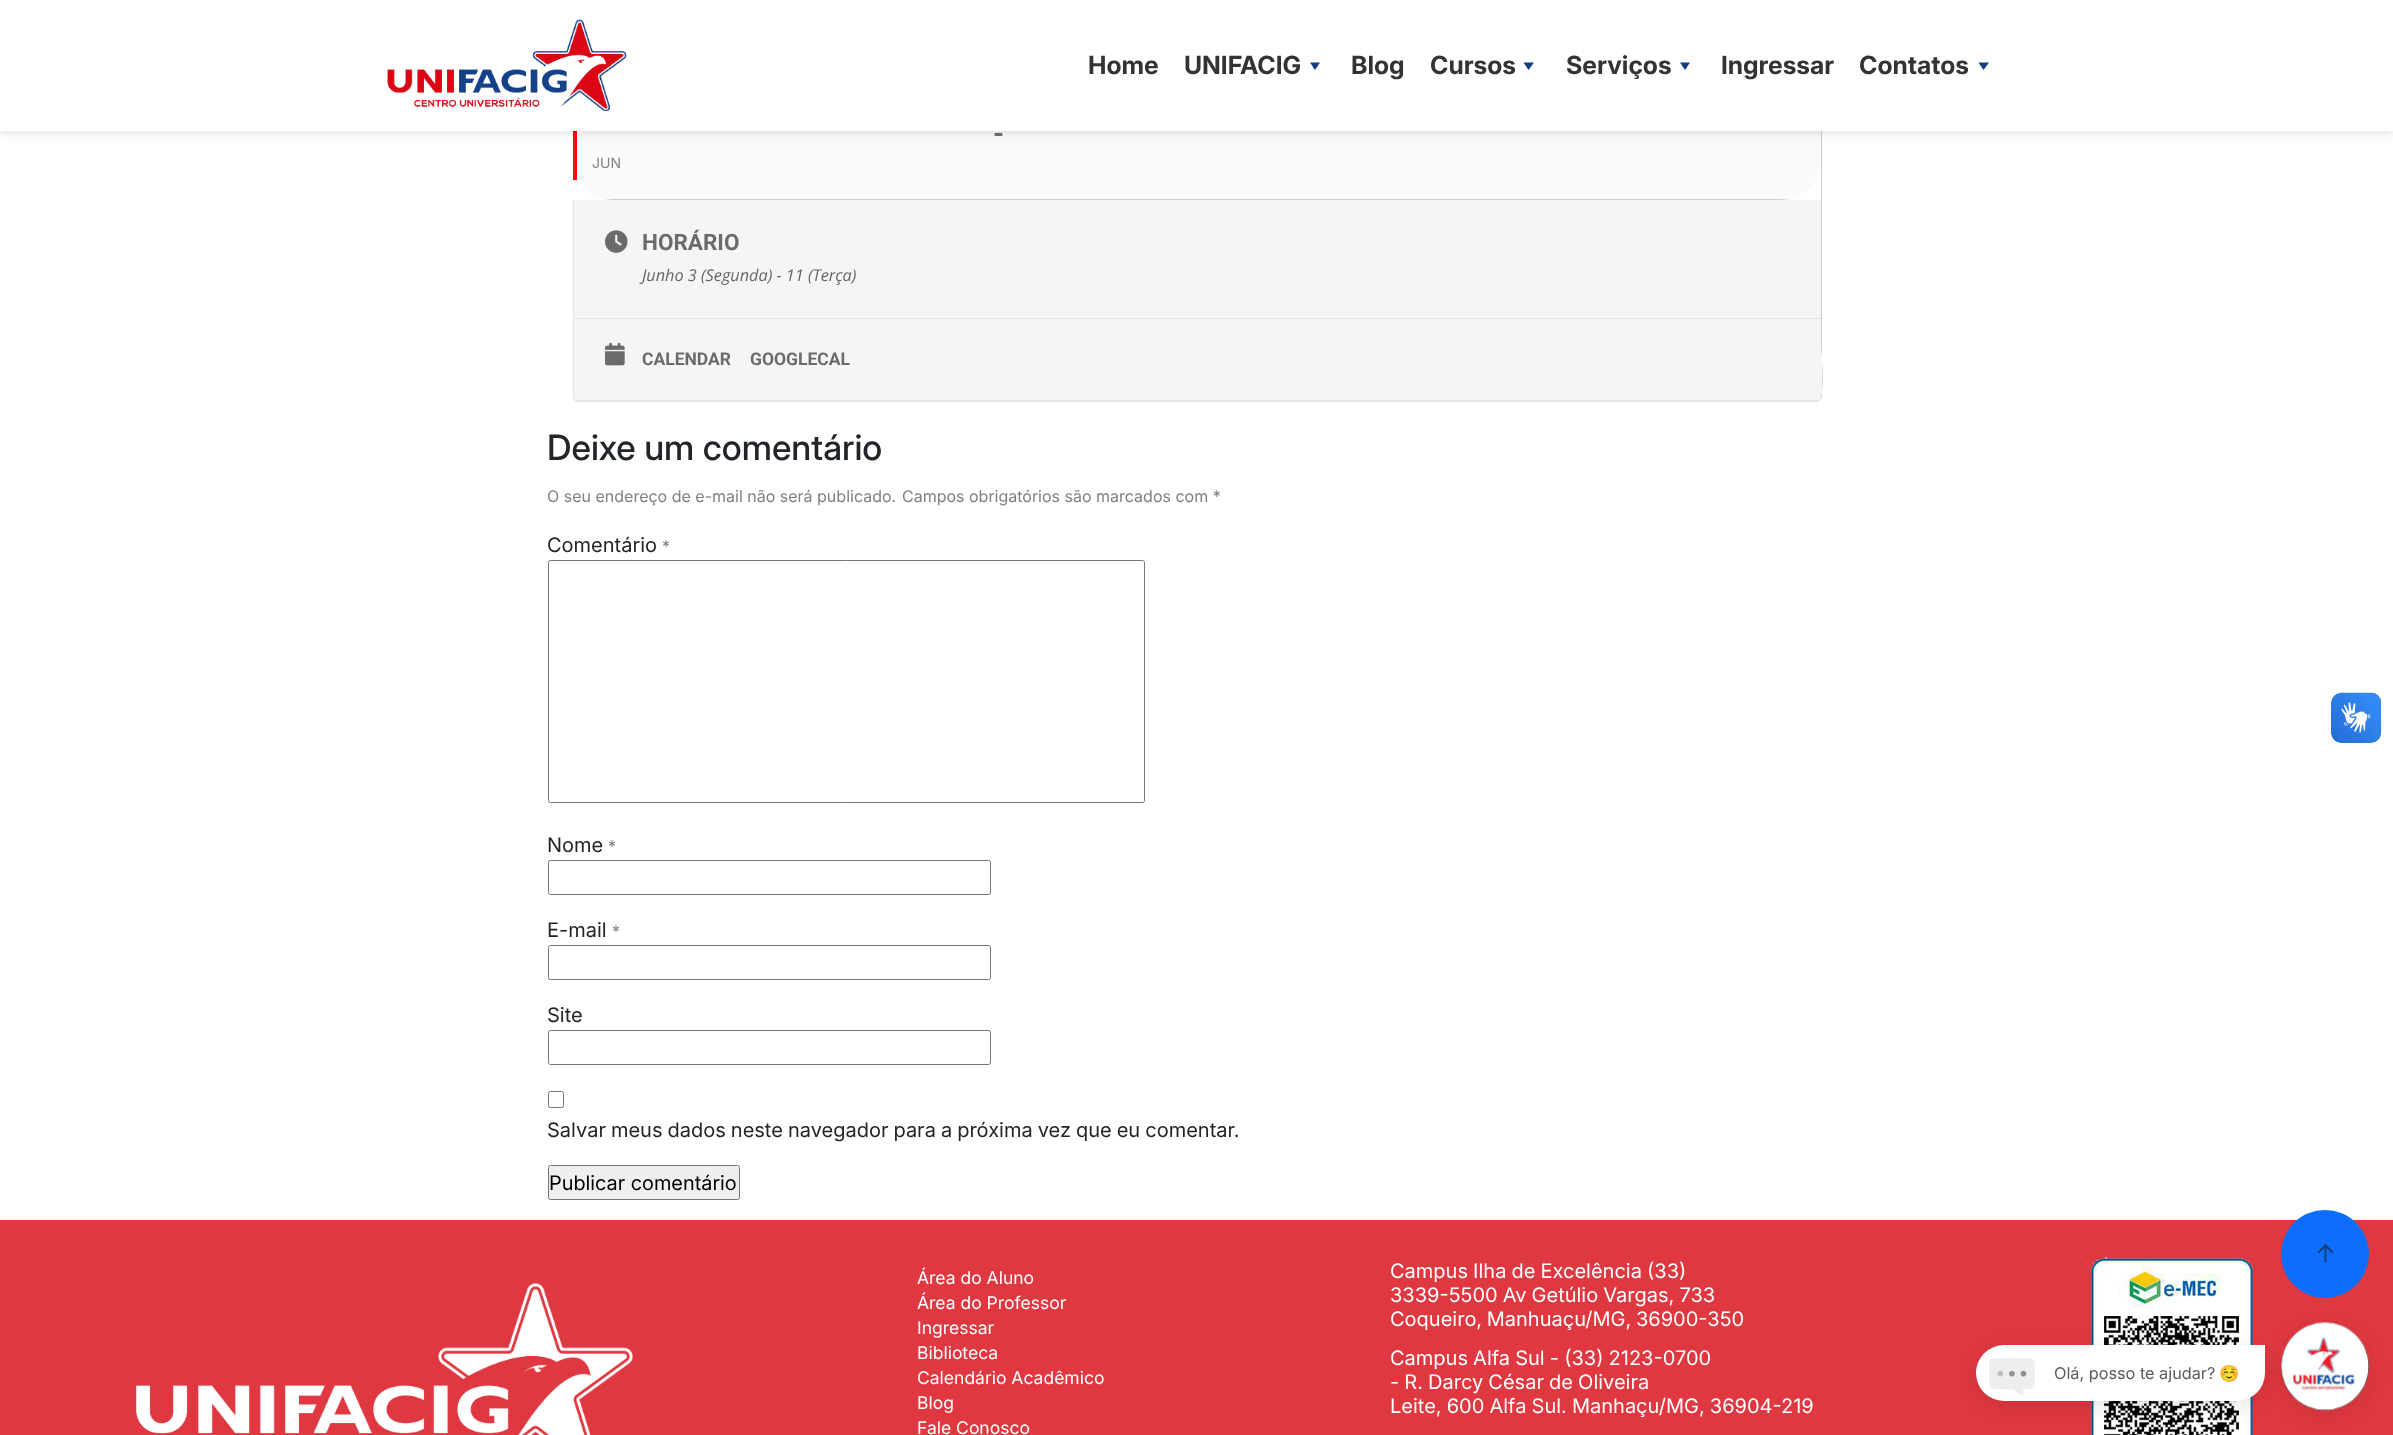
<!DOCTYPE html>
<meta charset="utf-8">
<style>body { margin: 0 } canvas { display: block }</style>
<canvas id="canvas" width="2393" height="1435"></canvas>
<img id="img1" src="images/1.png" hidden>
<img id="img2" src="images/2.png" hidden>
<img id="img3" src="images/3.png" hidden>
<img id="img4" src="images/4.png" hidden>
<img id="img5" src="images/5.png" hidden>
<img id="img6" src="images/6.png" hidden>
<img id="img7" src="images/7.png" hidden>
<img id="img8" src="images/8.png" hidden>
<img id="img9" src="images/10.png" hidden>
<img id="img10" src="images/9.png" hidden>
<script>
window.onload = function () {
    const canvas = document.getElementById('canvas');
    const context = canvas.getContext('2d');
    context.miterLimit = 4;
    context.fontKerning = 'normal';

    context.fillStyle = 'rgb(255, 255, 255)';
    context.fillRect(0, 0, 2393, 1435);
    context.fillStyle = 'rgb(205, 205, 205)';
    context.beginPath();
    context.moveTo(1820, 97);
    context.lineTo(1819, 98);
    context.lineTo(1821, 101);
    context.lineTo(1821, 346);
    context.bezierCurveTo(1821, 354, 1828, 402, 1815, 402);
    context.bezierCurveTo(1819, 402, 1822, 399, 1822, 395);
    context.lineTo(1822, 102);
    context.bezierCurveTo(1822, 100, 1821, 98, 1820, 97);
    context.closePath();
    context.fill();
    context.fillStyle = 'rgb(250, 250, 250)';
    context.beginPath();
    context.moveTo(1785, 96);
    context.lineTo(609, 96);
    context.bezierCurveTo(589, 98, 573, 115, 573, 136);
    context.lineTo(573, 160);
    context.bezierCurveTo(573, 182, 591, 200, 613, 200);
    context.lineTo(1781, 200);
    context.bezierCurveTo(1803, 200, 1821, 182, 1821, 160);
    context.lineTo(1821, 136);
    context.bezierCurveTo(1821, 115, 1805, 98, 1785, 96);
    context.closePath();
    context.fill();
    context.fillStyle = 'rgb(252, 10, 10)';
    context.fillRect(573, 131, 4, 49);
    context.fillStyle = 'rgba(0, 0, 0, 0.1)';
    context.filter = 'blur(4px)';
    context.beginPath();
    context.rect(0, 3, 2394, 131);
    context.fill();
    context.filter = 'none';
    context.fillStyle = 'rgb(255, 255, 255)';
    context.fillRect(0, 0, 2393, 131);
    context.drawImage(document.getElementById('img1'), 387, 19, 240, 92);
    context.fillStyle = 'rgb(18, 62, 134)';
    context.beginPath();
    context.moveTo(1320, 62.5);
    context.lineTo(1315, 70);
    context.lineTo(1310, 62.5);
    context.closePath();
    context.fill();
    context.beginPath();
    context.moveTo(1534, 62.5);
    context.lineTo(1528.5, 70);
    context.lineTo(1523.5, 62.5);
    context.closePath();
    context.fill();
    context.beginPath();
    context.moveTo(1690, 62.5);
    context.lineTo(1685, 70);
    context.lineTo(1680, 62.5);
    context.closePath();
    context.fill();
    context.beginPath();
    context.moveTo(1989, 62.5);
    context.lineTo(1983.5, 70);
    context.lineTo(1978.5, 62.5);
    context.closePath();
    context.fill();
    context.fillStyle = 'rgb(205, 205, 205)';
    context.beginPath();
    context.moveTo(612, 200);
    context.lineTo(1781, 200);
    context.lineTo(1790, 199);
    context.lineTo(604, 199);
    context.closePath();
    context.fill();
    context.fillStyle = 'rgb(245, 245, 245)';
    context.beginPath();
    context.moveTo(573, 200);
    context.lineTo(1821, 200);
    context.lineTo(1821, 364);
    context.bezierCurveTo(1821, 375, 1826, 402, 1815, 402);
    context.lineTo(580, 402);
    context.bezierCurveTo(577, 402, 573, 400, 573, 397);
    context.closePath();
    context.fill();
    context.fillStyle = 'rgb(229, 229, 229)';
    context.beginPath();
    context.moveTo(577, 402);
    context.lineTo(575, 401);
    context.lineTo(1819, 401);
    context.lineTo(1817, 402);
    context.closePath();
    context.fill();
    context.beginPath();
    context.moveTo(573, 200);
    context.lineTo(574, 200);
    context.lineTo(574, 400);
    context.lineTo(573, 397);
    context.closePath();
    context.fill();
    context.fillRect(574, 318, 1247, 1);
    context.drawImage(document.getElementById('img2'), 605, 230, 23, 23);
    context.fillStyle = 'rgb(245, 245, 245)';
    context.beginPath();
    context.moveTo(574, 319);
    context.lineTo(1821, 319);
    context.lineTo(1821, 397);
    context.lineTo(1819, 401);
    context.lineTo(575, 401);
    context.lineTo(574, 400);
    context.closePath();
    context.fill();
    context.fillStyle = 'rgb(229, 229, 229)';
    context.beginPath();
    context.moveTo(575, 401);
    context.lineTo(574, 400);
    context.lineTo(1820, 400);
    context.lineTo(1819, 401);
    context.closePath();
    context.fill();
    context.drawImage(document.getElementById('img3'), 605, 342, 20, 24);
    context.beginPath();
    context.roundRect(548.5, 560.5, 596, 242, 2);
    context.strokeStyle = 'rgb(118, 118, 118)';
    context.stroke();
    context.beginPath();
    context.roundRect(548.5, 860.5, 442, 34, 2);
    context.stroke();
    context.beginPath();
    context.roundRect(548.5, 945.5, 442, 34, 2);
    context.stroke();
    context.beginPath();
    context.roundRect(548.5, 1030.5, 442, 34, 2);
    context.stroke();
    context.beginPath();
    context.roundRect(548.5, 1091.5, 15, 16, 2);
    context.stroke();
    context.fillStyle = 'rgb(239, 239, 239)';
    context.beginPath();
    context.roundRect(548.5, 1165.5, 191, 34, 2);
    context.fill();
    context.stroke();
    context.fillStyle = 'rgb(224, 56, 65)';
    context.fillRect(0, 1220, 2393, 215);
    context.drawImage(document.getElementById('img4'), 2331, 692, 51, 51);
    context.drawImage(document.getElementById('img5'), 2331, 693, 50, 50);
    context.drawImage(document.getElementById('img6'), 136, 1283, 497, 152);
    context.drawImage(document.getElementById('img7'), 2085, 1257, 169, 178);
    context.fillStyle = 'rgb(13, 110, 253)';
    context.beginPath();
    context.arc(2325, 1254, 44, 0, 2 * Math.PI);
    context.fill();
    context.drawImage(document.getElementById('img8'), 2317, 1244, 17, 19);
    context.fillStyle = 'rgba(0, 0, 0, 0.1)';
    context.filter = 'blur(10px)';
    context.beginPath();
    context.roundRect(2281, 1328, 88, 87, 43.5);
    context.fill();
    context.filter = 'none';
    context.fillStyle = 'rgb(0, 0, 0)';
    context.beginPath();
    context.roundRect(2281, 1323, 88, 87, 43.5);
    context.fill();
    context.drawImage(document.getElementById('img9'), 2281, 1322, 89, 89);
    context.fillStyle = 'rgba(0, 0, 0, 0.1)';
    context.filter = 'blur(10px)';
    context.beginPath();
    context.roundRect(1976, 1350, 289, 56, 28);
    context.fill();
    context.filter = 'none';
    context.fillStyle = 'rgb(255, 255, 255)';
    context.beginPath();
    context.roundRect(1976, 1345, 289, 56, [28, 0, 28, 28]);
    context.fill();
    context.drawImage(document.getElementById('img10'), 1989, 1358, 46, 37);
    context.font = 'bold 25px Inter';
    context.fillStyle = 'rgb(51, 51, 51)';
    context.fillText('Home', 1088, 74);
    context.fillText('UNIFACIG', 1184, 74);
    context.fillText('Blog', 1351, 74);
    context.fillText('Cursos', 1430, 74);
    context.fillText('Serviços', 1566, 74);
    context.fillText('Ingressar', 1721, 74);
    context.fillText('Contatos', 1859, 74);
    context.font = 'bold 28px Roboto';
    context.fillStyle = 'rgb(107, 107, 107)';
    context.fillText('-', 993, 143);
    context.font = '14px Inter';
    context.fillStyle = 'rgb(128, 128, 128)';
    context.fillText('JUN', 592, 168);
    context.font = 'bold 22.5px Roboto';
    context.fillStyle = 'rgb(107, 107, 107)';
    context.fillText('HORÁRIO', 642, 250);
    context.font = 'italic 16.25px Open Sans';
    context.fillStyle = 'rgb(101, 101, 101)';
    context.fillText('Junho 3 (Segunda) - 11 (Terça)', 642, 281);
    context.font = 'bold 17.5px Roboto';
    context.fillStyle = 'rgb(107, 107, 107)';
    context.fillText('CALENDAR', 642, 365);
    context.fillText('GOOGLECAL', 750, 365);
    context.font = '500 35px Inter';
    context.fillStyle = 'rgb(33, 37, 41)';
    context.fillText('Deixe um comentário', 547, 460);
    context.font = '16px Inter';
    context.fillStyle = 'rgb(128, 128, 128)';
    context.fillText('O seu endereço de e-mail não será publicado.', 547, 502);
    context.fillText('Campos obrigatórios são marcados com *', 902, 502);
    context.font = '20px Inter';
    context.fillStyle = 'rgb(33, 37, 41)';
    context.fillText('Comentário', 547, 552);
    context.font = '16px Inter';
    context.fillStyle = 'rgb(128, 128, 128)';
    context.fillText('*', 662, 552);
    context.font = '20px Inter';
    context.fillStyle = 'rgb(33, 37, 41)';
    context.fillText('Nome', 547, 852);
    context.font = '16px Inter';
    context.fillStyle = 'rgb(128, 128, 128)';
    context.fillText('*', 608, 852);
    context.font = '20px Inter';
    context.fillStyle = 'rgb(33, 37, 41)';
    context.fillText('E-mail', 547, 937);
    context.font = '16px Inter';
    context.fillStyle = 'rgb(128, 128, 128)';
    context.fillText('*', 612, 937);
    context.font = '20px Inter';
    context.fillStyle = 'rgb(33, 37, 41)';
    context.fillText('Site', 547, 1022);
    context.wordSpacing = '-0.6px';
    context.fillText('Salvar meus dados neste navegador para a próxima vez que eu comentar.', 547, 1137);
    context.wordSpacing = '0px';
    context.font = '20px "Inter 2"';
    context.fillStyle = 'rgb(0, 0, 0)';
    context.fillText('Publicar comentário', 549, 1190);
    context.font = '17.5px Inter';
    context.fillStyle = 'rgb(255, 255, 255)';
    context.fillText('Área do Aluno', 917, 1284);
    context.fillText('Área do Professor', 917, 1309);
    context.fillText('Ingressar', 917, 1334);
    context.fillText('Biblioteca', 917, 1359);
    context.fillText('Calendário Acadêmico', 917, 1384);
    context.fillText('Blog', 917, 1409);
    context.fillText('Fale Conosco', 917, 1434);
    context.wordSpacing = '-0.5px';
    context.font = '20px Inter';
    context.fillText('Campus Ilha de Excelência (33)', 1390, 1278);
    context.fillText('3339-5500 Av Getúlio Vargas, 733', 1390, 1302);
    context.wordSpacing = '-1px';
    context.fillText('Coqueiro, Manhuaçu/MG, 36900-350', 1390, 1326);
    context.wordSpacing = '-0.5px';
    context.fillText('Campus Alfa Sul - (33) 2123-0700', 1390, 1365);
    context.fillText('- R. Darcy César de Oliveira', 1390, 1389);
    context.fillText('Leite, 600 Alfa Sul. Manhaçu/MG, 36904-219', 1390, 1413);
    context.wordSpacing = '0px';
    context.font = '16.25px Inter';
    context.fillStyle = 'rgb(92, 92, 92)';
    context.fillText('Olá, posso te ajudar?', 2054, 1379);
    context.font = '16.25px Noto Color Emoji';
    context.fillText('☺️', 2219, 1379);
};
</script>
